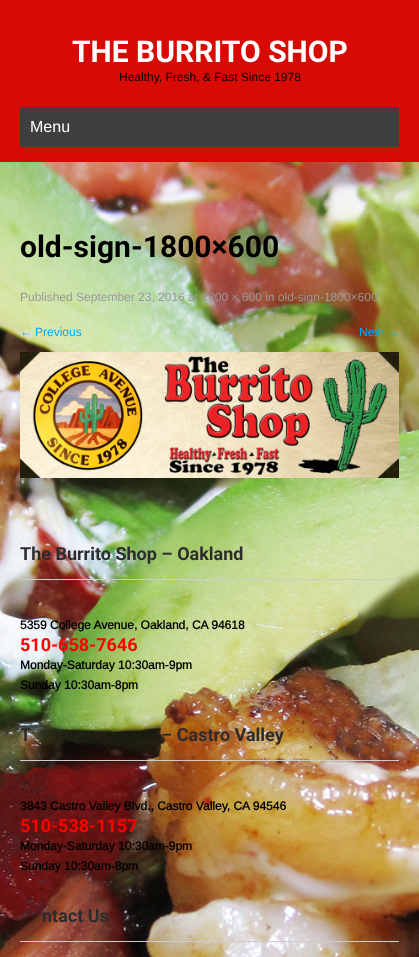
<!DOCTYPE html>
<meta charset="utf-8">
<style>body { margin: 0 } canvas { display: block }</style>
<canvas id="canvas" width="419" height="957"></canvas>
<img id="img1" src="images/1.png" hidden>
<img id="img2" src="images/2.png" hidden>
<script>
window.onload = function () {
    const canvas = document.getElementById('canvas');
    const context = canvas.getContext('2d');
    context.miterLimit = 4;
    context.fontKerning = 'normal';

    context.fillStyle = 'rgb(255, 255, 255)';
    context.fillRect(0, 0, 419, 957);
    context.drawImage(document.getElementById('img1'), 0, 162, 419, 795);
    context.fillStyle = 'rgb(216, 11, 4)';
    context.fillRect(0, 0, 419, 162);
    context.fillStyle = 'rgb(62, 62, 62)';
    context.fillRect(20, 107, 379, 40);
    context.drawImage(document.getElementById('img2'), 20, 352, 379, 126);
    context.fillStyle = 'rgb(204, 204, 204)';
    context.fillRect(20, 579, 379, 1);
    context.fillRect(20, 760, 379, 1);
    context.fillRect(20, 941, 379, 1);
    context.font = 'bold 30px Roboto';
    context.fillStyle = 'rgb(255, 255, 255)';
    context.fillText('THE BURRITO SHOP', 72, 62);
    context.font = '12px Arimo';
    context.fillStyle = 'rgb(0, 0, 0)';
    context.fillText('Healthy, Fresh, & Fast Since 1978', 119, 81);
    context.font = '16px Arimo';
    context.fillStyle = 'rgb(255, 255, 255)';
    context.fillText('Menu', 30, 132);
    context.font = 'bold 30px Roboto';
    context.fillStyle = 'rgb(0, 0, 0)';
    context.fillText('old-sign-1800×600', 20, 257);
    context.font = '12px Arimo';
    context.fillStyle = 'rgb(153, 153, 153)';
    context.fillText('Published September 23, 2016 at 1800 × 600 in old-sign-1800×600', 20, 301);
    context.font = '12px Liberation Sans';
    context.fillStyle = 'rgb(0, 168, 255)';
    context.fillText('←', 20, 336);
    context.font = '12px Arimo';
    context.fillText('Previous', 35, 336);
    context.fillText('Next', 359, 336);
    context.font = '12px Liberation Sans';
    context.fillText('→', 387, 336);
    context.font = 'bold 18px Roboto';
    context.fillStyle = 'rgb(44, 44, 44)';
    context.fillText('The Burrito Shop – Oakland', 20, 560);
    context.font = 'bold 12px Arimo';
    context.fillStyle = 'rgb(0, 0, 0)';
    context.fillText('5359 College Avenue, Oakland, CA 94618', 20, 629);
    context.font = 'bold 18px Roboto';
    context.fillStyle = 'rgb(255, 0, 0)';
    context.fillText('510-658-7646', 20, 651);
    context.font = 'bold 12px Arimo';
    context.fillStyle = 'rgb(0, 0, 0)';
    context.fillText('Monday-Saturday 10:30am-9pm', 20, 669);
    context.fillText('Sunday 10:30am-8pm', 20, 689);
    context.font = 'bold 18px Roboto';
    context.fillStyle = 'rgb(44, 44, 44)';
    context.fillText('T', 20, 741);
    context.fillText('– Castro Valley', 161, 741);
    context.font = 'bold 12px Arimo';
    context.fillStyle = 'rgb(0, 0, 0)';
    context.fillText('3843 Castro Valley Blvd., Castro Valley, CA 94546', 20, 810);
    context.font = 'bold 18px Roboto';
    context.fillStyle = 'rgb(255, 0, 0)';
    context.fillText('510-538-1157', 20, 832);
    context.font = 'bold 12px Arimo';
    context.fillStyle = 'rgb(0, 0, 0)';
    context.fillText('Monday-Saturday 10:30am-9pm', 20, 850);
    context.fillText('Sunday 10:30am-8pm', 20, 870);
    context.font = 'bold 18px Roboto';
    context.fillStyle = 'rgb(44, 44, 44)';
    context.fillText('ntact Us', 42, 922);
};
</script>
